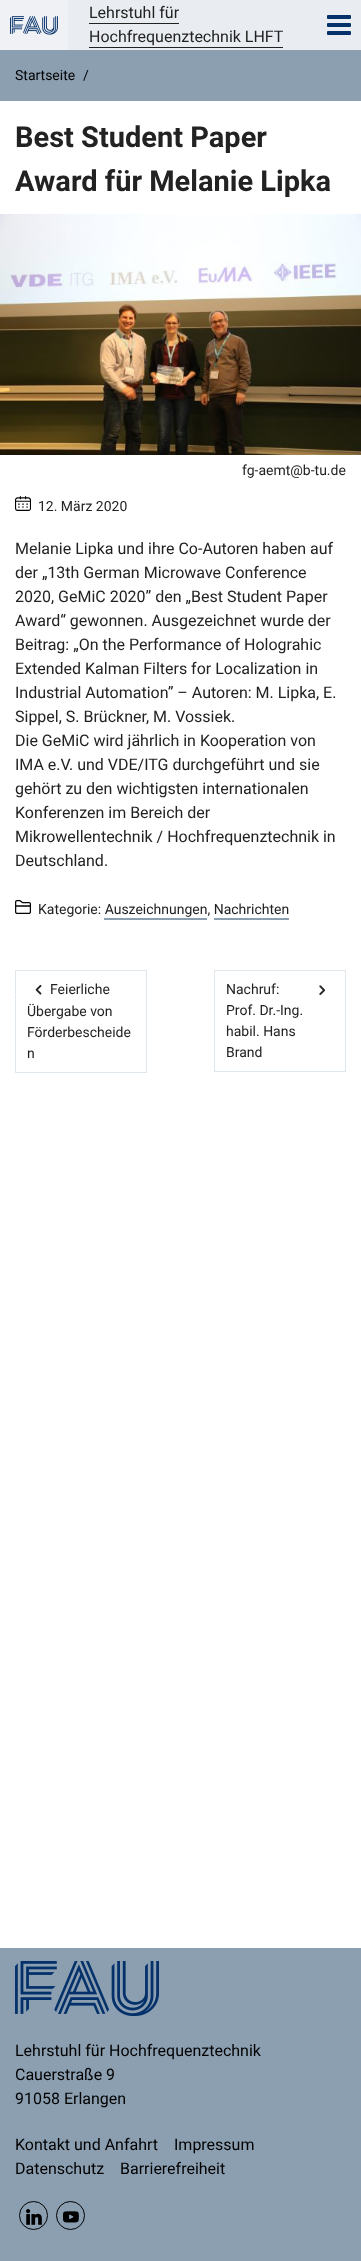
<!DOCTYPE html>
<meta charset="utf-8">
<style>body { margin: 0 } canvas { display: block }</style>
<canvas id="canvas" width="361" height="2261"></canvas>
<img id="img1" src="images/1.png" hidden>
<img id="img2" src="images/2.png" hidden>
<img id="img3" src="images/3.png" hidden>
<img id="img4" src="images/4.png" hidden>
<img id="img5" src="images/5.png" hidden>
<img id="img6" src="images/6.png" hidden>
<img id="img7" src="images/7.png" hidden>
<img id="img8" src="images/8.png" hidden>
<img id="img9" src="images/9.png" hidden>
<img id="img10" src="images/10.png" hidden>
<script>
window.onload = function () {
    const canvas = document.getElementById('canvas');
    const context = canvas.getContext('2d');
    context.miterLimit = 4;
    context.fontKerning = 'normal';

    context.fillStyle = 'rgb(255, 255, 255)';
    context.fillRect(0, 0, 361, 2261);
    context.fillStyle = 'rgb(233, 237, 242)';
    context.fillRect(68, 0, 293, 50);
    context.fillStyle = 'rgb(239, 241, 244)';
    context.fillRect(0, 0, 68, 50);
    context.drawImage(document.getElementById('img1'), 10, 16, 48, 19);
    context.fillStyle = 'rgb(34, 34, 34)';
    context.fillRect(89, 23, 90, 1);
    context.fillRect(89, 47, 194, 1);
    context.drawImage(document.getElementById('img2'), 327, 15, 24, 20);
    context.fillStyle = 'rgb(140, 159, 177)';
    context.fillRect(0, 50, 361, 51);
    context.drawImage(document.getElementById('img3'), 0, 214, 361, 241);
    context.drawImage(document.getElementById('img4'), 15, 496, 16, 15);
    context.drawImage(document.getElementById('img5'), 15, 900, 16, 14);
    context.fillRect(104, 918, 103, 2);
    context.fillRect(214, 918, 75, 2);
    context.strokeStyle = 'rgb(223, 230, 236)';
    context.strokeRect(15.5, 970.5, 131, 102);
    context.fillStyle = 'rgb(243, 249, 255)';
    context.fillRect(15, 994, 1, 1);
    context.drawImage(document.getElementById('img6'), 35, 984, 7, 11);
    context.strokeRect(214.5, 970.5, 131, 101);
    context.drawImage(document.getElementById('img7'), 319, 985, 7, 10);
    context.fillStyle = 'rgb(140, 159, 177)';
    context.fillRect(0, 1948, 361, 313);
    context.drawImage(document.getElementById('img8'), 15, 1961, 144, 55);
    context.beginPath();
    context.arc(33.5, 2215.5, 14, 0, 2 * Math.PI);
    context.strokeStyle = 'rgb(0, 0, 0)';
    context.stroke();
    context.drawImage(document.getElementById('img9'), 26, 2209, 16, 16);
    context.beginPath();
    context.arc(70.5, 2215.5, 14, 0, 2 * Math.PI);
    context.stroke();
    context.drawImage(document.getElementById('img10'), 63, 2211, 16, 12);
    context.font = '16px Roboto';
    context.fillStyle = 'rgb(34, 34, 34)';
    context.fillText('Lehrstuhl für', 89, 18);
    context.fillText('Hochfrequenztechnik LHFT', 89, 42);
    context.font = '14px Roboto';
    context.fillStyle = 'rgb(0, 0, 0)';
    context.fillText('Startseite', 15, 80);
    context.fillText('/', 83, 80);
    context.font = 'bold 29px Roboto';
    context.fillStyle = 'rgb(34, 34, 34)';
    context.fillText('Best Student Paper', 15, 147);
    context.fillText('Award für Melanie Lipka', 15, 191);
    context.font = '14px Roboto';
    context.fillText('fg-aemt@b-tu.de', 242, 475);
    context.fillText('12. März 2020', 38, 511);
    context.font = '16px Roboto';
    context.fillText('Melanie Lipka und ihre Co-Autoren haben auf', 15, 554);
    context.fillText('der „13th German Microwave Conference', 15, 578);
    context.fillText('2020, GeMiC 2020” den „Best Student Paper', 15, 602);
    context.fillText('Award“ gewonnen. Ausgezeichnet wurde der', 15, 626);
    context.fillText('Beitrag: „On the Performance of Holograhic', 15, 650);
    context.fillText('Extended Kalman Filters for Localization in', 15, 674);
    context.fillText('Industrial Automation” – Autoren: M. Lipka, E.', 15, 698);
    context.fillText('Sippel, S. Brückner, M. Vossiek.', 15, 722);
    context.fillText('Die GeMiC wird jährlich in Kooperation von', 15, 746);
    context.fillText('IMA e.V. und VDE/ITG durchgeführt und sie', 15, 770);
    context.fillText('gehört zu den wichtigsten internationalen', 15, 794);
    context.fillText('Konferenzen im Bereich der', 15, 818);
    context.fillText('Mikrowellentechnik / Hochfrequenztechnik in', 15, 842);
    context.fillText('Deutschland.', 15, 866);
    context.font = '14px Roboto';
    context.fillText('Kategorie: Auszeichnungen, Nachrichten', 38, 914);
    context.fillText('Feierliche', 50, 994);
    context.fillText('Übergabe von', 27, 1016);
    context.fillText('Förderbescheide', 27, 1037);
    context.fillText('n', 27, 1058);
    context.fillText('Nachruf:', 226, 994);
    context.fillText('Prof. Dr.-Ing.', 226, 1015);
    context.fillText('habil. Hans', 226, 1036);
    context.fillText('Brand', 226, 1057);
    context.font = '16px Roboto';
    context.fillStyle = 'rgb(0, 0, 0)';
    context.fillText('Lehrstuhl für Hochfrequenztechnik', 15, 2056);
    context.fillText('Cauerstraße 9', 15, 2080);
    context.fillText('91058 Erlangen', 15, 2104);
    context.fillText('Kontakt und Anfahrt', 15, 2150);
    context.fillText('Impressum', 174, 2150);
    context.fillText('Datenschutz', 15, 2174);
    context.fillText('Barrierefreiheit', 120, 2174);
};
</script>
